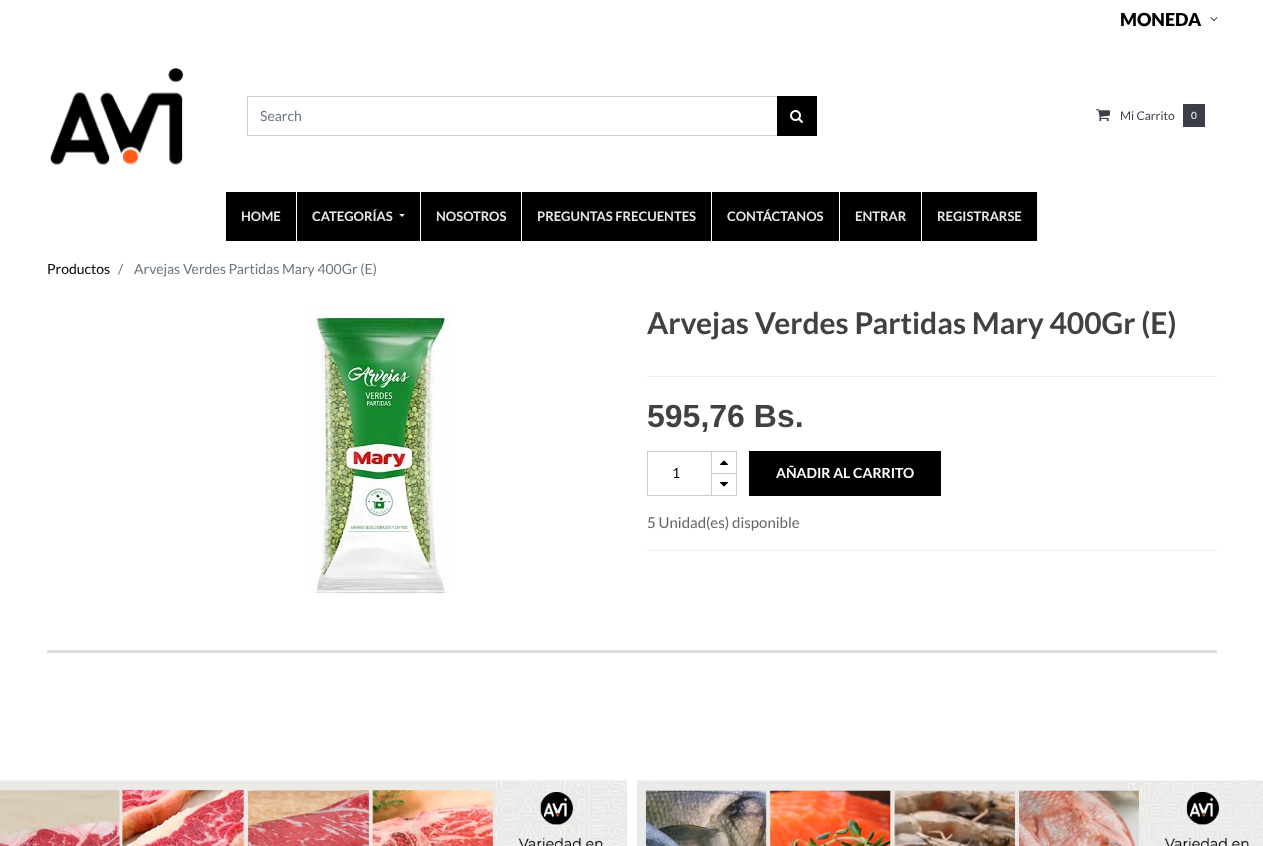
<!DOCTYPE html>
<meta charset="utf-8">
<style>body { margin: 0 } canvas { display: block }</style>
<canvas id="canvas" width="1263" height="846"></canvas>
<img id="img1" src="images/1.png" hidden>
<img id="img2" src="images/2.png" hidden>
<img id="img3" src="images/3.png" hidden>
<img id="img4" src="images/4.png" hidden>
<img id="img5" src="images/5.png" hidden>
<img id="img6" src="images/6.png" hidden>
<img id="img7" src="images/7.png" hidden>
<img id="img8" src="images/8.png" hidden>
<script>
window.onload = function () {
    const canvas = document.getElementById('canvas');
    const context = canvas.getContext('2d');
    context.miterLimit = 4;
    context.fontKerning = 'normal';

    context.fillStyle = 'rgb(255, 255, 255)';
    context.fillRect(0, 0, 1263, 846);
    context.fillStyle = 'rgb(0, 0, 0)';
    context.beginPath();
    context.moveTo(1217, 17);
    context.lineTo(1217.5, 17.5);
    context.lineTo(1214, 21);
    context.lineTo(1213.5, 20.5);
    context.closePath();
    context.fill();
    context.beginPath();
    context.moveTo(1211, 17);
    context.lineTo(1214.5, 20.5);
    context.lineTo(1214, 21);
    context.lineTo(1210.5, 17.5);
    context.closePath();
    context.fill();
    context.drawImage(document.getElementById('img1'), 50, 68, 134, 97);
    context.strokeStyle = 'rgb(204, 204, 204)';
    context.strokeRect(247.5, 96.5, 569, 39);
    context.fillRect(777, 96, 40, 40);
    context.drawImage(document.getElementById('img2'), 790, 110, 13, 13);
    context.drawImage(document.getElementById('img3'), 1096, 109, 14, 13);
    context.fillStyle = 'rgb(58, 62, 70)';
    context.fillRect(1183, 104, 22, 23);
    context.fillStyle = 'rgb(0, 0, 0)';
    context.fillRect(226, 192, 70, 49);
    context.fillRect(297, 192, 123, 49);
    context.fillStyle = 'rgb(230, 230, 230)';
    context.beginPath();
    context.moveTo(399, 214);
    context.lineTo(405, 214);
    context.lineTo(402, 217);
    context.closePath();
    context.fill();
    context.fillStyle = 'rgb(0, 0, 0)';
    context.fillRect(421, 192, 100, 49);
    context.fillRect(522, 192, 189, 49);
    context.fillRect(712, 192, 127, 49);
    context.fillRect(840, 192, 81, 49);
    context.fillRect(922, 192, 115, 49);
    context.fillStyle = 'rgb(238, 238, 238)';
    context.fillRect(1037, 192, 1, 49);
    context.drawImage(document.getElementById('img4'), 309, 305, 144, 288);
    context.fillStyle = 'rgb(237, 237, 237)';
    context.fillRect(647, 376, 570, 1);
    context.strokeRect(647.5, 451.5, 89, 44);
    context.fillStyle = 'rgba(0, 0, 0, 0.2)';
    context.beginPath();
    context.moveTo(711, 495);
    context.lineTo(711, 473);
    context.lineTo(712, 474);
    context.lineTo(712, 495);
    context.closePath();
    context.fill();
    context.fillStyle = 'rgb(255, 255, 255)';
    context.fillRect(711, 473, 1, 1);
    context.fillStyle = 'rgb(204, 204, 204)';
    context.beginPath();
    context.moveTo(736, 474);
    context.lineTo(711, 474);
    context.lineTo(712, 473);
    context.lineTo(736, 473);
    context.closePath();
    context.fill();
    context.fillStyle = 'rgba(0, 0, 0, 0.2)';
    context.beginPath();
    context.moveTo(711, 474);
    context.lineTo(711, 452);
    context.lineTo(712, 452);
    context.lineTo(712, 473);
    context.closePath();
    context.fill();
    context.drawImage(document.getElementById('img5'), 720, 460, 8, 5);
    context.drawImage(document.getElementById('img6'), 720, 482, 8, 5);
    context.fillStyle = 'rgb(0, 0, 0)';
    context.fillRect(749, 451, 192, 45);
    context.fillStyle = 'rgb(237, 237, 237)';
    context.fillRect(647, 550, 570, 1);
    context.fillStyle = 'rgb(221, 221, 221)';
    context.fillRect(47, 650, 1170, 3);
    context.drawImage(document.getElementById('img7'), 0, 778, 627, 68);
    context.drawImage(document.getElementById('img8'), 637, 780, 626, 66);
    context.font = '900 18px Lato';
    context.fillStyle = 'rgb(0, 0, 0)';
    context.fillText('MONEDA', 1120, 26);
    context.font = '14px Lato';
    context.fillStyle = 'rgb(108, 117, 125)';
    context.fillText('Search', 260, 121);
    context.font = '12px Lato';
    context.fillStyle = 'rgb(58, 62, 70)';
    context.fillText('Mi Carrito', 1120, 120);
    context.font = '10px Lato';
    context.fillStyle = 'rgb(255, 255, 255)';
    context.fillText('0', 1191, 119);
    context.font = 'bold 13px Lato';
    context.fillStyle = 'rgb(230, 230, 230)';
    context.fillText('HOME', 241, 221);
    context.fillText('CATEGORÍAS', 312, 221);
    context.fillText('NOSOTROS', 436, 221);
    context.fillText('PREGUNTAS FRECUENTES', 537, 221);
    context.fillText('CONTÁCTANOS', 727, 221);
    context.fillText('ENTRAR', 855, 221);
    context.fillText('REGISTRARSE', 937, 221);
    context.font = '14px Lato';
    context.fillStyle = 'rgb(0, 0, 0)';
    context.fillText('Productos', 47, 274);
    context.fillStyle = 'rgb(108, 117, 125)';
    context.fillText('/', 118, 274);
    context.fillText('Arvejas Verdes Partidas Mary 400Gr (E)', 134, 274);
    context.font = 'bold 30px Lato';
    context.fillStyle = 'rgb(65, 65, 65)';
    context.fillText('Arvejas Verdes Partidas Mary 400Gr (E)', 647, 334);
    context.font = 'bold 32px Liberation Sans';
    context.fillText('595,76 Bs.', 647, 427);
    context.font = '14px Lato';
    context.fillStyle = 'rgb(0, 0, 0)';
    context.fillText('1', 672, 478);
    context.font = 'bold 14px Lato';
    context.fillStyle = 'rgb(255, 255, 255)';
    context.fillText('AÑADIR AL CARRITO', 776, 478);
    context.font = '15px Lato';
    context.fillStyle = 'rgb(102, 102, 102)';
    context.fillText('5 Unidad(es) disponible', 647, 528);
};
</script>
